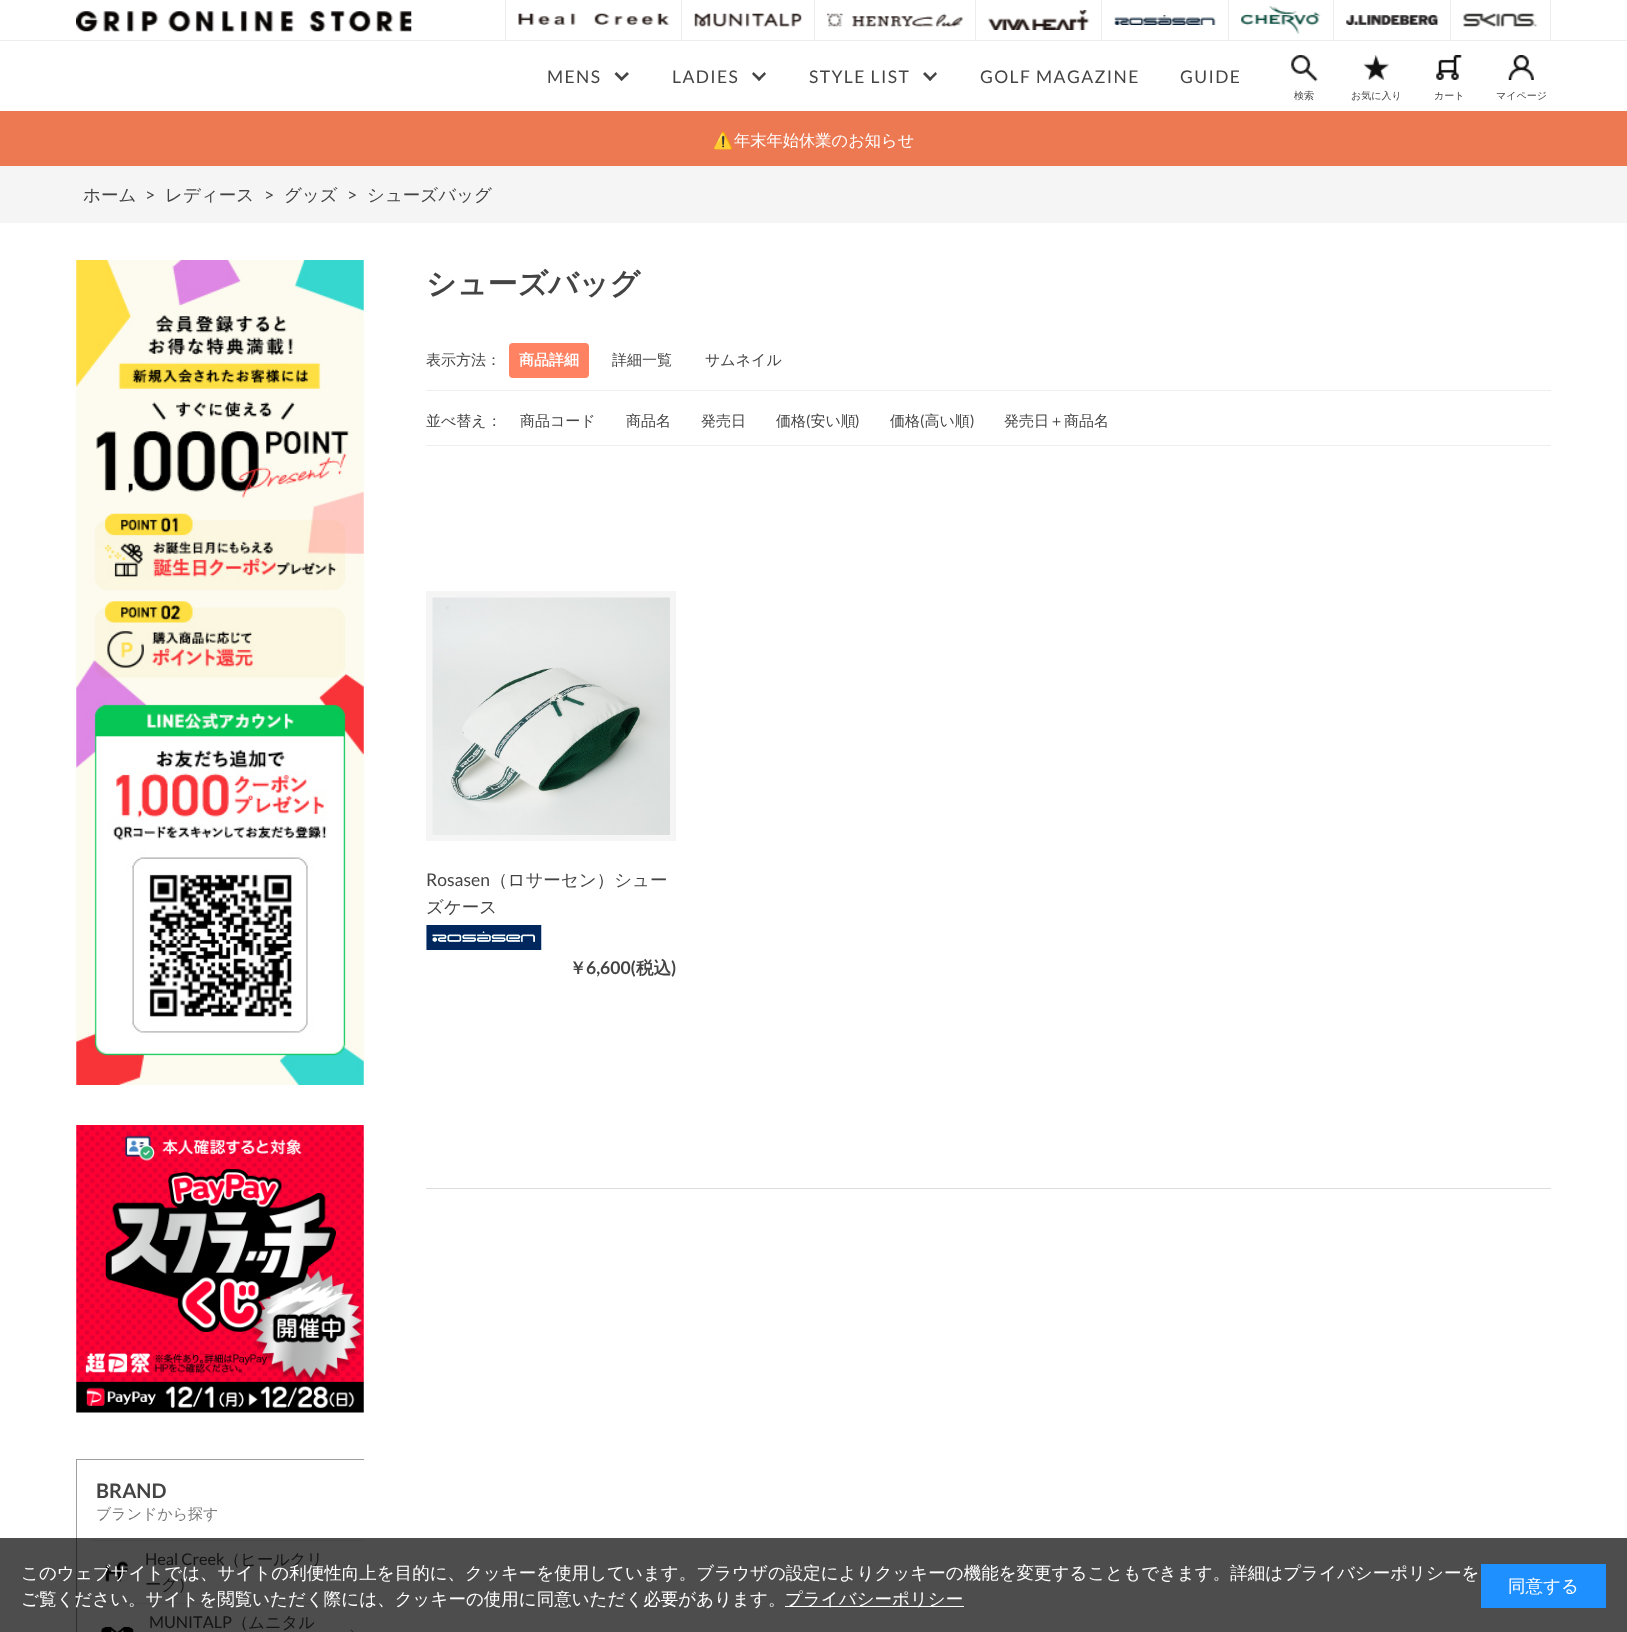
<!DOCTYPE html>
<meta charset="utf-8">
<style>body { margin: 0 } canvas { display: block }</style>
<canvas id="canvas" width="1627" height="1632"></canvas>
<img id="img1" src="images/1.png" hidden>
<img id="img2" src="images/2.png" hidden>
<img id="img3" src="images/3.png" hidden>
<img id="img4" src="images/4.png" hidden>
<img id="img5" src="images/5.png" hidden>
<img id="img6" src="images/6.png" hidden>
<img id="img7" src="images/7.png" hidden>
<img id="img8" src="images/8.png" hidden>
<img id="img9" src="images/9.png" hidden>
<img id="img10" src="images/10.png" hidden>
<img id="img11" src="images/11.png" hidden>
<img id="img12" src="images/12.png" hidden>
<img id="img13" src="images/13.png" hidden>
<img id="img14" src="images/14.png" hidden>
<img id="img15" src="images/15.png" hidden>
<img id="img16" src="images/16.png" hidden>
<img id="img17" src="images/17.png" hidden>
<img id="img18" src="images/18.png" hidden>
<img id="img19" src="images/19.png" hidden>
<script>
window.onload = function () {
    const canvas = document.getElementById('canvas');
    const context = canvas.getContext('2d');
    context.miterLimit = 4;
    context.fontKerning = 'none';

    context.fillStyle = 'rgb(255, 255, 255)';
    context.fillRect(0, 0, 1627, 1632);
    context.fillStyle = 'rgb(77, 77, 77)';
    context.fillRect(0, 1538, 1627, 94);
    context.drawImage(document.getElementById('img1'), 76, 11, 336, 21);
    context.fillStyle = 'rgb(237, 237, 237)';
    context.fillRect(681, 0, 1, 41);
    context.fillRect(505, 0, 1, 41);
    context.drawImage(document.getElementById('img2'), 518, 13, 152, 12);
    context.fillRect(814, 0, 1, 41);
    context.drawImage(document.getElementById('img3'), 694, 13, 108, 14);
    context.fillRect(975, 0, 1, 41);
    context.drawImage(document.getElementById('img4'), 827, 13, 137, 14);
    context.fillRect(1101, 0, 1, 41);
    context.drawImage(document.getElementById('img5'), 988, 10, 102, 20);
    context.fillRect(1228, 0, 1, 41);
    context.drawImage(document.getElementById('img6'), 1114, 15, 102, 10);
    context.fillRect(1333, 0, 1, 41);
    context.drawImage(document.getElementById('img7'), 1241, 6, 80, 28);
    context.fillRect(1450, 0, 1, 41);
    context.drawImage(document.getElementById('img8'), 1346, 15, 93, 10);
    context.fillRect(1550, 0, 1, 41);
    context.drawImage(document.getElementById('img9'), 1463, 13, 75, 14);
    context.fillRect(0, 40, 1627, 1);
    context.fillStyle = 'rgb(68, 68, 68)';
    context.beginPath();
    context.moveTo(627, 72);
    context.lineTo(629, 74);
    context.lineTo(621.5, 81);
    context.lineTo(620, 79);
    context.closePath();
    context.fill();
    context.beginPath();
    context.moveTo(616.5, 72);
    context.lineTo(623.5, 79);
    context.lineTo(621.5, 81);
    context.lineTo(614.5, 74);
    context.closePath();
    context.fill();
    context.beginPath();
    context.moveTo(764.5, 72);
    context.lineTo(766, 74);
    context.lineTo(759, 81);
    context.lineTo(757.5, 79);
    context.closePath();
    context.fill();
    context.beginPath();
    context.moveTo(753.5, 72);
    context.lineTo(761, 79);
    context.lineTo(759, 81);
    context.lineTo(752, 74);
    context.closePath();
    context.fill();
    context.beginPath();
    context.moveTo(935.5, 72);
    context.lineTo(937, 74);
    context.lineTo(930, 81);
    context.lineTo(928.5, 79);
    context.closePath();
    context.fill();
    context.beginPath();
    context.moveTo(925, 72);
    context.lineTo(932, 79);
    context.lineTo(930, 81);
    context.lineTo(923, 74);
    context.closePath();
    context.fill();
    context.drawImage(document.getElementById('img10'), 1291, 55, 27, 27);
    context.drawImage(document.getElementById('img11'), 1363, 55, 26, 25);
    context.drawImage(document.getElementById('img12'), 1436, 55, 26, 25);
    context.drawImage(document.getElementById('img13'), 1508, 55, 26, 25);
    context.fillStyle = 'rgb(236, 121, 82)';
    context.fillRect(0, 111, 1627, 55);
    context.fillStyle = 'rgb(245, 245, 245)';
    context.fillRect(0, 166, 1627, 57);
    context.fillStyle = 'rgb(238, 238, 238)';
    context.fillRect(426, 390, 1125, 1);
    context.fillStyle = 'rgb(255, 131, 99)';
    context.beginPath();
    context.roundRect(509, 343, 80, 35, 4);
    context.fill();
    context.fillStyle = 'rgb(238, 238, 238)';
    context.fillRect(426, 445, 1125, 1);
    context.fillStyle = 'rgb(245, 245, 245)';
    context.fillRect(426, 591, 250, 250);
    context.drawImage(document.getElementById('img14'), 432, 597, 238, 238);
    context.drawImage(document.getElementById('img15'), 426, 925, 116, 25);
    context.fillStyle = 'rgb(220, 220, 220)';
    context.fillRect(426, 1188, 1125, 1);
    context.drawImage(document.getElementById('img16'), 76, 260, 288, 825);
    context.drawImage(document.getElementById('img17'), 76, 1125, 288, 288);
    context.fillStyle = 'rgb(158, 158, 158)';
    context.fillRect(76, 1459, 288, 1);
    context.fillRect(76, 1459, 1, 79);
    context.fillStyle = 'rgb(47, 47, 47)';
    context.fillRect(76, 1538, 1, 94);
    context.fillStyle = 'rgb(71, 71, 71)';
    context.fillRect(90, 1540, 274, 1);
    context.fillRect(90, 1603, 274, 1);
    context.drawImage(document.getElementById('img18'), 105, 1561, 23, 21);
    context.fillStyle = 'rgb(41, 41, 41)';
    context.beginPath();
    context.moveTo(351, 1567);
    context.lineTo(356.5, 1572);
    context.lineTo(355.5, 1573);
    context.lineTo(350.5, 1567.5);
    context.closePath();
    context.fill();
    context.beginPath();
    context.moveTo(355.5, 1571);
    context.lineTo(356.5, 1572);
    context.lineTo(351, 1577.5);
    context.lineTo(350.5, 1576.5);
    context.closePath();
    context.fill();
    context.drawImage(document.getElementById('img19'), 101, 1626, 33, 6);
    context.beginPath();
    context.moveTo(351, 1629.5);
    context.lineTo(356.5, 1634.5);
    context.lineTo(355.5, 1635.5);
    context.lineTo(350.5, 1630);
    context.closePath();
    context.fill();
    context.fillStyle = 'rgb(255, 255, 255)';
    context.fillRect(785, 1606, 179, 1);
    context.fillStyle = 'rgb(30, 144, 255)';
    context.fillRect(1481, 1564, 125, 44);
    context.letterSpacing = '1.4px';
    context.font = '17.5px Lato';
    context.fillStyle = 'rgb(68, 68, 68)';
    context.fillText('MENS', 547, 83);
    context.fillText('LADIES', 672, 83);
    context.fillText('STYLE LIST', 809, 83);
    context.fillText('GOLF MAGAZINE', 980, 83);
    context.fillText('GUIDE', 1180, 83);
    context.letterSpacing = '0px';
    context.font = '500 10px WenQuanYi Zen Hei';
    context.fillText('検索', 1294, 99);
    context.fillText('お気に入り', 1351, 99);
    context.fillText('カート', 1434, 99);
    context.fillText('マイページ', 1496, 99);
    context.font = '16.25px Noto Color Emoji';
    context.fillStyle = 'rgb(255, 255, 255)';
    context.fillText('⚠', 713, 146);
    context.font = '500 16.25px WenQuanYi Zen Hei';
    context.fillText('年末年始休業のお知らせ', 734, 146);
    context.font = '500 17.5px WenQuanYi Zen Hei';
    context.fillStyle = 'rgb(68, 68, 68)';
    context.fillText('ホーム', 83, 201);
    context.font = '17.5px Lato';
    context.fillText('>', 145, 201);
    context.font = '500 17.5px WenQuanYi Zen Hei';
    context.fillText('レディース', 165, 201);
    context.font = '17.5px Lato';
    context.fillText('>', 264, 201);
    context.font = '500 17.5px WenQuanYi Zen Hei';
    context.fillText('グッズ', 284, 201);
    context.font = '17.5px Lato';
    context.fillText('>', 347, 201);
    context.font = '500 17.5px WenQuanYi Zen Hei';
    context.fillText('シューズバッグ', 367, 201);
    context.font = 'bold 30px WenQuanYi Zen Hei';
    context.fillText('シューズバッグ', 426, 294);
    context.font = '500 15px WenQuanYi Zen Hei';
    context.fillText('表示方法：', 426, 365);
    context.font = 'bold 15px WenQuanYi Zen Hei';
    context.fillStyle = 'rgb(255, 255, 255)';
    context.fillText('商品詳細', 519, 365);
    context.font = '500 15px WenQuanYi Zen Hei';
    context.fillStyle = 'rgb(68, 68, 68)';
    context.fillText('詳細一覧', 612, 365);
    context.fillText('サムネイル', 705, 365);
    context.fillText('並べ替え：', 426, 426);
    context.fillText('商品コード', 520, 426);
    context.fillText('商品名', 626, 426);
    context.fillText('発売日', 701, 426);
    context.fillText('価格 安い順', 776, 426);
    context.font = '15px Lato';
    context.fillText('(', 806, 426);
    context.fillText(')', 855, 426);
    context.font = '500 15px WenQuanYi Zen Hei';
    context.fillText('価格 高い順', 890, 426);
    context.font = '15px Lato';
    context.fillText('(', 920, 426);
    context.fillText(')', 970, 426);
    context.font = '500 15px WenQuanYi Zen Hei';
    context.fillText('発売日＋商品名', 1004, 426);
    context.font = '17.5px Lato';
    context.fillText('Rosasen', 426, 886);
    context.font = '500 17.5px WenQuanYi Zen Hei';
    context.fillText('（ロサーセン）シュー', 490, 886);
    context.fillText('ズケース', 426, 913);
    context.font = 'bold 17.5px WenQuanYi Zen Hei';
    context.fillText('￥', 569, 974);
    context.font = 'bold 17.5px Lato';
    context.fillText('6,600(', 586, 974);
    context.font = 'bold 17.5px WenQuanYi Zen Hei';
    context.fillText('税込', 636, 974);
    context.font = 'bold 17.5px Lato';
    context.fillText(')', 671, 974);
    context.font = 'bold 20px Lato';
    context.fillText('BRAND', 96, 1498);
    context.font = '500 15px WenQuanYi Zen Hei';
    context.fillStyle = 'rgb(123, 123, 123)';
    context.fillText('ブランドから探す', 96, 1519);
    context.font = '16.25px Lato';
    context.fillStyle = 'rgb(20, 20, 20)';
    context.fillText('Heal Creek', 145, 1565);
    context.font = '500 16.25px WenQuanYi Zen Hei';
    context.fillText('（ヒールクリ', 224, 1565);
    context.fillText('ーク）', 145, 1590);
    context.font = '16.25px Lato';
    context.fillText('MUNITALP', 149, 1628);
    context.font = '500 16.25px WenQuanYi Zen Hei';
    context.fillText('（ムニタル', 232, 1628);
    context.font = '500 17.5px WenQuanYi Zen Hei';
    context.fillStyle = 'rgb(255, 255, 255)';
    context.fillText('このウェブサイトでは、サイトの利便性向上を目的に、クッキーを使用しています。ブラウザの設定によりクッキーの機能を変更することもできます。詳細はプライバシーポリシーを', 21, 1579);
    context.fillText('ご覧ください。サイトを閲覧いただく際には、クッキーの使用に同意いただく必要があります。', 21, 1605);
    context.fillText('プライバシーポリシー', 785, 1605);
    context.fillText('同意する', 1508, 1592);
};
</script>
